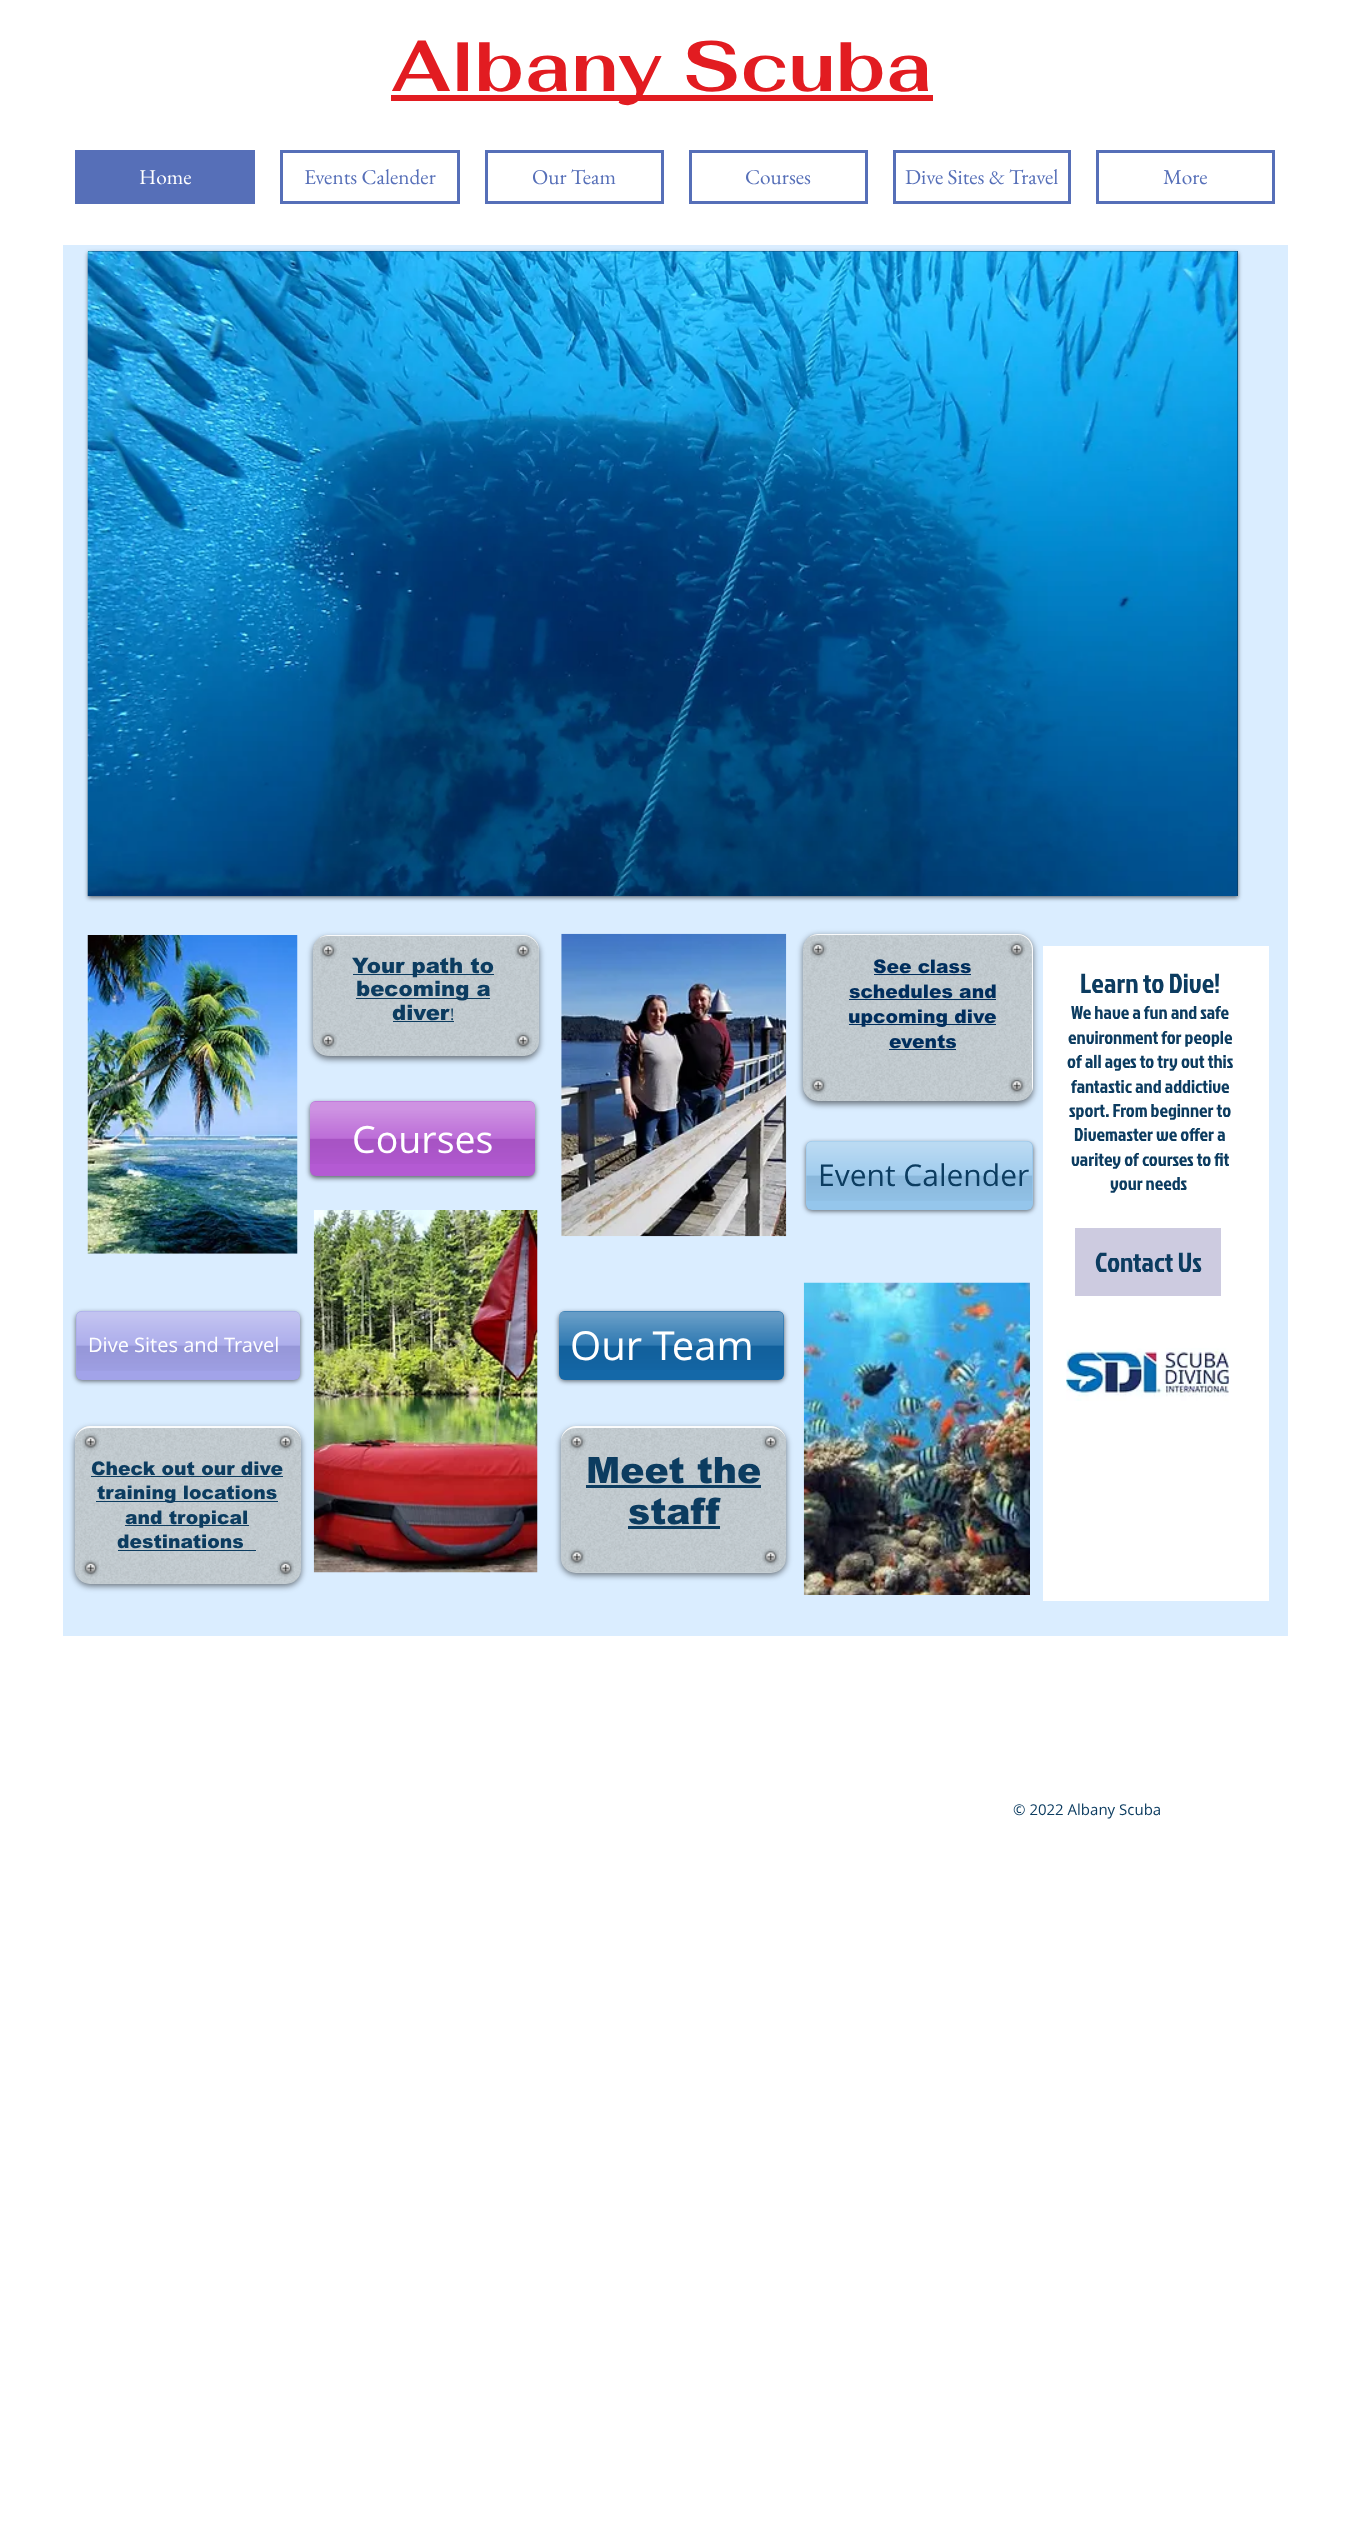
<!DOCTYPE html>
<meta charset="utf-8">
<style>body { margin: 0 } canvas { display: block }</style>
<canvas id="canvas" width="1350" height="2524"></canvas>
<img id="img1" src="images/1.png" hidden>
<img id="img2" src="images/2.png" hidden>
<img id="img3" src="images/3.png" hidden>
<img id="img4" src="images/4.png" hidden>
<img id="img5" src="images/5.png" hidden>
<img id="img6" src="images/6.png" hidden>
<img id="img7" src="images/7.png" hidden>
<img id="img8" src="images/8.png" hidden>
<img id="img9" src="images/9.png" hidden>
<img id="img10" src="images/10.png" hidden>
<img id="img11" src="images/11.png" hidden>
<img id="img12" src="images/12.png" hidden>
<img id="img13" src="images/13.png" hidden>
<img id="img14" src="images/14.png" hidden>
<img id="img15" src="images/15.png" hidden>
<img id="img16" src="images/16.png" hidden>
<img id="img17" src="images/17.png" hidden>
<img id="img18" src="images/18.png" hidden>
<img id="img19" src="images/19.png" hidden>
<img id="img20" src="images/20.png" hidden>
<img id="img21" src="images/21.png" hidden>
<img id="img22" src="images/22.png" hidden>
<img id="img23" src="images/23.png" hidden>
<img id="img24" src="images/24.png" hidden>
<img id="img25" src="images/25.png" hidden>
<img id="img26" src="images/26.png" hidden>
<img id="img27" src="images/27.png" hidden>
<img id="img28" src="images/28.png" hidden>
<img id="img29" src="images/29.png" hidden>
<img id="img30" src="images/30.png" hidden>
<script>
window.onload = function () {
    const canvas = document.getElementById('canvas');
    const context = canvas.getContext('2d');
    context.miterLimit = 4;
    context.fontKerning = 'normal';

    context.fillStyle = 'rgb(255, 255, 255)';
    context.fillRect(0, 0, 1350, 2524);
    context.fillStyle = 'rgb(226, 28, 33)';
    context.fillRect(391, 95, 542, 6);
    context.fillStyle = 'rgb(86, 111, 184)';
    context.fillRect(75, 150, 180, 54);
    context.strokeStyle = 'rgb(86, 111, 184)';
    context.lineWidth = 3;
    context.strokeRect(281.5, 151.5, 177, 51);
    context.strokeRect(486.5, 151.5, 176, 51);
    context.strokeRect(690.5, 151.5, 176, 51);
    context.strokeRect(894.5, 151.5, 175, 51);
    context.strokeRect(1097.5, 151.5, 176, 51);
    context.fillStyle = 'rgb(218, 237, 255)';
    context.fillRect(63, 245, 1225, 1391);
    context.fillStyle = 'rgba(0, 0, 0, 0.5)';
    context.filter = 'blur(2px)';
    context.beginPath();
    context.rect(88, 253, 1150, 645);
    context.fill();
    context.filter = 'none';
    context.fillStyle = 'rgb(12, 60, 96)';
    context.fillRect(88, 251, 1150, 645);
    context.drawImage(document.getElementById('img1'), 87, 251, 1151, 646);
    context.drawImage(document.getElementById('img2'), 87, 935, 211, 319);
    context.fillStyle = 'rgba(0, 0, 0, 0.53)';
    context.filter = 'blur(3px)';
    context.beginPath();
    context.roundRect(313, 938, 226, 121, 15);
    context.fill();
    context.filter = 'none';
    context.fillStyle = 'rgb(198, 207, 212)';
    context.beginPath();
    context.roundRect(313, 935, 226, 121, 15);
    context.fill();
    context.drawImage(document.getElementById('img3'), 313, 935, 226, 121);
    context.fillStyle = 'rgba(255, 255, 255, 0.92)';
    context.beginPath();
    context.moveTo(328, 936);
    context.lineTo(524, 936);
    context.bezierCurveTo(532, 936, 539, 943, 539, 951);
    context.lineTo(539, 950);
    context.bezierCurveTo(539, 942, 532, 935, 524, 935);
    context.lineTo(328, 935);
    context.bezierCurveTo(323, 935, 318, 938, 316, 942);
    context.bezierCurveTo(318, 938, 323, 936, 328, 936);
    context.closePath();
    context.fill();
    context.drawImage(document.getElementById('img4'), 320, 942, 17, 17);
    context.drawImage(document.getElementById('img5'), 515, 942, 17, 17);
    context.fillStyle = 'rgb(12, 60, 96)';
    context.fillRect(353, 974, 141, 1);
    context.fillRect(356, 998, 134, 1);
    context.fillRect(393, 1021, 61, 1);
    context.drawImage(document.getElementById('img6'), 320, 1032, 17, 17);
    context.drawImage(document.getElementById('img7'), 515, 1032, 17, 17);
    context.drawImage(document.getElementById('img8'), 561, 933, 226, 304);
    context.fillStyle = 'rgba(0, 0, 0, 0.53)';
    context.filter = 'blur(3px)';
    context.beginPath();
    context.roundRect(803, 936, 230, 168, 15);
    context.fill();
    context.filter = 'none';
    context.fillStyle = 'rgb(198, 207, 212)';
    context.beginPath();
    context.roundRect(803, 934, 230, 167, 15);
    context.fill();
    context.drawImage(document.getElementById('img9'), 803, 934, 229, 167);
    context.fillStyle = 'rgba(255, 255, 255, 0.92)';
    context.beginPath();
    context.moveTo(818, 935);
    context.lineTo(1018, 935);
    context.bezierCurveTo(1026, 935, 1032, 942, 1032, 950);
    context.lineTo(1032, 1088);
    context.bezierCurveTo(1032, 1090, 1032, 1092, 1031, 1094);
    context.bezierCurveTo(1032, 1091, 1033, 1089, 1033, 1086);
    context.lineTo(1033, 949);
    context.bezierCurveTo(1033, 941, 1026, 934, 1018, 934);
    context.lineTo(818, 934);
    context.bezierCurveTo(813, 934, 808, 937, 806, 941);
    context.bezierCurveTo(808, 937, 813, 935, 818, 935);
    context.closePath();
    context.fill();
    context.drawImage(document.getElementById('img10'), 810, 941, 17, 17);
    context.drawImage(document.getElementById('img11'), 1008, 941, 18, 17);
    context.fillStyle = 'rgb(0, 46, 93)';
    context.fillRect(874, 974, 97, 1);
    context.fillRect(849, 999, 147, 1);
    context.fillRect(849, 1024, 147, 1);
    context.fillRect(889, 1049, 67, 1);
    context.drawImage(document.getElementById('img12'), 810, 1077, 17, 17);
    context.drawImage(document.getElementById('img13'), 1008, 1077, 18, 17);
    context.fillStyle = 'rgb(255, 255, 255)';
    context.fillRect(1043, 946, 226, 655);
    context.fillStyle = 'rgb(205, 203, 224)';
    context.fillRect(1075, 1228, 146, 68);
    context.drawImage(document.getElementById('img14'), 1066, 1348, 163, 53);
    context.fillStyle = 'rgba(0, 0, 0, 0.6)';
    context.filter = 'blur(2.5px)';
    context.beginPath();
    context.roundRect(310, 1103, 225, 75, 6);
    context.fill();
    context.filter = 'none';
    context.fillStyle = 'rgb(180, 90, 211)';
    context.beginPath();
    context.roundRect(310, 1101, 225, 75, 6);
    context.fill();
    context.drawImage(document.getElementById('img15'), 310, 1101, 225, 63);
    context.fillStyle = 'rgba(0, 0, 0, 0.6)';
    context.filter = 'blur(2.5px)';
    context.beginPath();
    context.roundRect(806, 1143, 227, 68, 6);
    context.fill();
    context.filter = 'none';
    context.fillStyle = 'rgb(149, 198, 236)';
    context.beginPath();
    context.roundRect(806, 1141, 227, 69, 6);
    context.fill();
    context.drawImage(document.getElementById('img16'), 806, 1141, 227, 60);
    context.fillStyle = 'rgba(0, 0, 0, 0.6)';
    context.filter = 'blur(2.5px)';
    context.beginPath();
    context.roundRect(76, 1313, 224, 68, 6);
    context.fill();
    context.filter = 'none';
    context.fillStyle = 'rgb(162, 163, 233)';
    context.beginPath();
    context.roundRect(76, 1311, 224, 69, 6);
    context.fill();
    context.drawImage(document.getElementById('img17'), 76, 1311, 224, 60);
    context.drawImage(document.getElementById('img18'), 313, 1210, 225, 363);
    context.fillStyle = 'rgba(0, 0, 0, 0.6)';
    context.filter = 'blur(2.5px)';
    context.beginPath();
    context.roundRect(559, 1313, 225, 68, 6);
    context.fill();
    context.filter = 'none';
    context.fillStyle = 'rgb(20, 104, 168)';
    context.beginPath();
    context.roundRect(559, 1311, 225, 69, 6);
    context.fill();
    context.drawImage(document.getElementById('img19'), 559, 1311, 225, 59);
    context.drawImage(document.getElementById('img20'), 803, 1282, 227, 313);
    context.fillStyle = 'rgba(0, 0, 0, 0.53)';
    context.filter = 'blur(3px)';
    context.beginPath();
    context.roundRect(75, 1429, 226, 157, 15);
    context.fill();
    context.filter = 'none';
    context.fillStyle = 'rgb(198, 207, 212)';
    context.beginPath();
    context.roundRect(75, 1426, 226, 158, 15);
    context.fill();
    context.drawImage(document.getElementById('img21'), 75, 1426, 226, 158);
    context.fillStyle = 'rgba(255, 255, 255, 0.92)';
    context.beginPath();
    context.moveTo(90, 1428);
    context.lineTo(286, 1428);
    context.bezierCurveTo(295, 1428, 301, 1434, 301, 1442);
    context.lineTo(301, 1441);
    context.bezierCurveTo(301, 1433, 294, 1426, 286, 1426);
    context.lineTo(90, 1426);
    context.bezierCurveTo(82, 1426, 75, 1433, 75, 1441);
    context.lineTo(75, 1442);
    context.bezierCurveTo(75, 1434, 82, 1428, 90, 1428);
    context.closePath();
    context.fill();
    context.drawImage(document.getElementById('img22'), 82, 1433, 17, 18);
    context.drawImage(document.getElementById('img23'), 277, 1433, 17, 18);
    context.fillStyle = 'rgb(12, 60, 96)';
    context.fillRect(91, 1476, 192, 1);
    context.fillRect(96, 1501, 182, 1);
    context.fillRect(125, 1525, 124, 1);
    context.fillRect(118, 1550, 138, 1);
    context.drawImage(document.getElementById('img24'), 82, 1560, 17, 17);
    context.drawImage(document.getElementById('img25'), 277, 1560, 17, 17);
    context.fillStyle = 'rgba(0, 0, 0, 0.53)';
    context.filter = 'blur(3px)';
    context.beginPath();
    context.roundRect(561, 1429, 225, 146, 15);
    context.fill();
    context.filter = 'none';
    context.fillStyle = 'rgb(198, 207, 212)';
    context.beginPath();
    context.roundRect(561, 1426, 225, 147, 15);
    context.fill();
    context.drawImage(document.getElementById('img26'), 561, 1426, 225, 146);
    context.fillStyle = 'rgba(255, 255, 255, 0.92)';
    context.beginPath();
    context.moveTo(576, 1428);
    context.lineTo(771, 1428);
    context.bezierCurveTo(780, 1428, 786, 1434, 786, 1442);
    context.lineTo(786, 1441);
    context.bezierCurveTo(786, 1433, 779, 1426, 771, 1426);
    context.lineTo(576, 1426);
    context.bezierCurveTo(568, 1426, 561, 1433, 561, 1441);
    context.lineTo(561, 1442);
    context.bezierCurveTo(561, 1434, 568, 1428, 576, 1428);
    context.closePath();
    context.fill();
    context.drawImage(document.getElementById('img27'), 568, 1433, 18, 18);
    context.drawImage(document.getElementById('img28'), 762, 1433, 17, 18);
    context.fillStyle = 'rgb(12, 60, 96)';
    context.fillRect(586, 1485, 175, 3);
    context.fillRect(628, 1526, 92, 3);
    context.drawImage(document.getElementById('img29'), 568, 1548, 18, 18);
    context.drawImage(document.getElementById('img30'), 762, 1548, 17, 18);
    context.font = 'bold 71.25px Fahkwang';
    context.fillStyle = 'rgb(226, 28, 33)';
    context.fillText('Albany Scuba', 391, 91);
    context.font = '21.25px EB Garamond';
    context.fillStyle = 'rgb(255, 255, 255)';
    context.fillText('Home', 139, 184);
    context.fillStyle = 'rgb(86, 111, 184)';
    context.fillText('Events Calender', 304, 184);
    context.fillText('Our Team', 532, 184);
    context.fillText('Courses', 745, 184);
    context.fillText('Dive Sites & Travel', 905, 184);
    context.fillText('More', 1163, 184);
    context.font = '900 21.25px arial';
    context.fillStyle = 'rgb(12, 60, 96)';
    context.fillText('Your path to', 352, 973);
    context.fillText('becoming a', 356, 996);
    context.fillText('diver', 392, 1020);
    context.font = '16px Open Sans';
    context.fillText('!', 450, 1020);
    context.font = '900 18.75px arial';
    context.fillStyle = 'rgb(0, 46, 93)';
    context.fillText('See class', 873, 973);
    context.fillText('schedules and', 849, 998);
    context.fillText('upcoming dive', 848, 1023);
    context.fillText('events', 889, 1048);
    context.font = '27.5px Jockey One';
    context.fillStyle = 'rgb(12, 60, 96)';
    context.fillText('Learn to Dive!', 1080, 993);
    context.font = '18.75px Jockey One';
    context.fillText('We have a fun and safe', 1071, 1019);
    context.fillText('environment for people', 1068, 1044);
    context.fillText('of all ages to try out this', 1067, 1068);
    context.fillText('fantastic and addictive', 1071, 1093);
    context.fillText('sport. From beginner to', 1069, 1117);
    context.fillText('Divemaster we offer a', 1074, 1141);
    context.fillText('varitey of courses to fit', 1071, 1166);
    context.fillText('your needs', 1110, 1190);
    context.font = '27.5px Jockey One';
    context.fillText('Contact Us', 1095, 1272);
    context.font = '37.5px Open Sans';
    context.fillStyle = 'rgb(255, 255, 255)';
    context.fillText('Courses', 352, 1153);
    context.font = '30px Open Sans';
    context.fillStyle = 'rgb(12, 60, 96)';
    context.fillText('Event Calender', 818, 1186);
    context.font = '20px Open Sans';
    context.fillStyle = 'rgb(255, 255, 255)';
    context.fillText('Dive Sites and Travel', 88, 1352);
    context.font = '40px Open Sans';
    context.fillText('Our Team', 570, 1360);
    context.font = '900 18.75px arial';
    context.fillStyle = 'rgb(12, 60, 96)';
    context.fillText('Check out our dive', 91, 1475);
    context.fillText('training locations', 97, 1499);
    context.fillText('and tropical', 125, 1524);
    context.fillText('destinations', 117, 1548);
    context.font = '900 36.25px arial';
    context.fillText('Meet the', 586, 1483);
    context.fillText('staff', 628, 1524);
    context.font = '15px Open Sans';
    context.fillText('© 2022 Albany Scuba', 1013, 1815);
};
</script>
